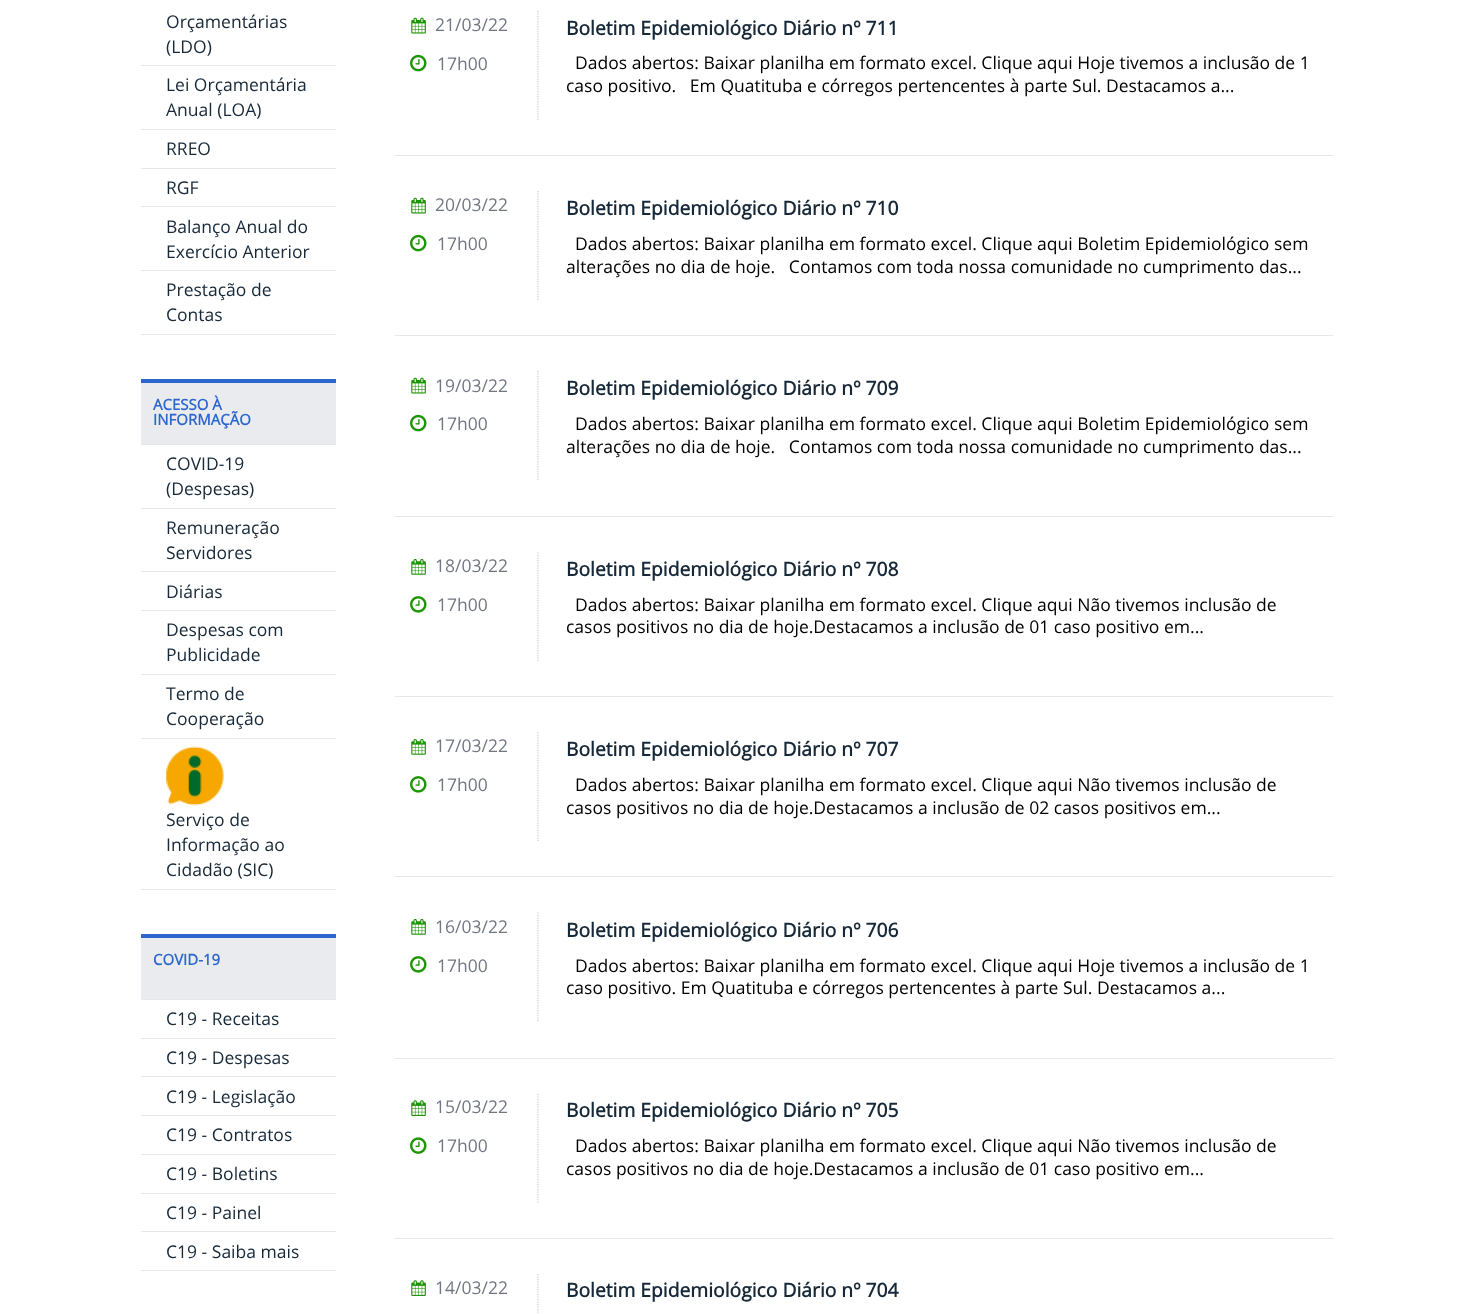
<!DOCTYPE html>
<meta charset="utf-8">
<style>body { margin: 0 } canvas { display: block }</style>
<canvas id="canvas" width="1465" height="1314"></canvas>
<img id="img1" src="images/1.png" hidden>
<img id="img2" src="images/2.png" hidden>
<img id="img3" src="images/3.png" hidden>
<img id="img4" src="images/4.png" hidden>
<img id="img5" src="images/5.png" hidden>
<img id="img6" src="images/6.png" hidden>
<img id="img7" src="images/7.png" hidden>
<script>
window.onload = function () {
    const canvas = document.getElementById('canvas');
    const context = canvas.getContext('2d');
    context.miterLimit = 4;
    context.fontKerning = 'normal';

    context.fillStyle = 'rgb(255, 255, 255)';
    context.fillRect(0, 0, 1465, 1314);
    context.fillStyle = 'rgb(232, 231, 231)';
    context.fillRect(141, 65, 195, 1);
    context.fillRect(141, 129, 195, 1);
    context.fillRect(141, 168, 195, 1);
    context.fillRect(141, 206, 195, 1);
    context.fillRect(141, 270, 195, 1);
    context.fillRect(141, 334, 195, 1);
    context.fillStyle = 'rgb(234, 235, 238)';
    context.fillRect(141, 383, 195, 61);
    context.fillStyle = 'rgb(44, 102, 206)';
    context.fillRect(141, 379, 195, 4);
    context.fillStyle = 'rgb(232, 231, 231)';
    context.fillRect(141, 444, 195, 1);
    context.fillRect(141, 508, 195, 1);
    context.fillRect(141, 571, 195, 1);
    context.fillRect(141, 610, 195, 1);
    context.fillRect(141, 674, 195, 1);
    context.fillRect(141, 738, 195, 1);
    context.fillRect(141, 889, 195, 1);
    context.drawImage(document.getElementById('img1'), 166, 746, 58, 60);
    context.fillStyle = 'rgb(234, 235, 238)';
    context.fillRect(141, 938, 195, 61);
    context.fillStyle = 'rgb(44, 102, 206)';
    context.fillRect(141, 934, 195, 4);
    context.fillStyle = 'rgb(232, 231, 231)';
    context.fillRect(141, 999, 195, 1);
    context.fillRect(141, 1038, 195, 1);
    context.fillRect(141, 1076, 195, 1);
    context.fillRect(141, 1115, 195, 1);
    context.fillRect(141, 1154, 195, 1);
    context.fillRect(141, 1193, 195, 1);
    context.fillRect(141, 1231, 195, 1);
    context.fillRect(141, 1270, 195, 1);
    context.fillRect(395, 155, 938, 1);
    context.drawImage(document.getElementById('img2'), 411, 17, 15, 17);
    context.drawImage(document.getElementById('img3'), 410, 54, 17, 18);
    context.beginPath();
    context.moveTo(538, 11);
    context.lineTo(538, 120);
    context.strokeStyle = 'rgb(207, 205, 205)';
    context.lineWidth = 1.2;
    context.setLineDash([1.25, 1.25]);
    context.stroke();
    context.fillRect(395, 335, 938, 1);
    context.drawImage(document.getElementById('img2'), 411, 197, 15, 17);
    context.drawImage(document.getElementById('img3'), 410, 234, 17, 18);
    context.beginPath();
    context.moveTo(538, 191);
    context.lineTo(538, 300);
    context.stroke();
    context.fillRect(395, 516, 938, 1);
    context.drawImage(document.getElementById('img2'), 411, 377, 15, 17);
    context.drawImage(document.getElementById('img3'), 410, 414, 17, 18);
    context.beginPath();
    context.moveTo(538, 371);
    context.lineTo(538, 481);
    context.stroke();
    context.fillRect(395, 696, 938, 1);
    context.drawImage(document.getElementById('img4'), 411, 559, 15, 16);
    context.drawImage(document.getElementById('img5'), 410, 596, 17, 17);
    context.beginPath();
    context.moveTo(538, 552.5);
    context.lineTo(538, 661);
    context.stroke();
    context.fillRect(395, 876, 938, 1);
    context.drawImage(document.getElementById('img4'), 411, 739, 15, 16);
    context.drawImage(document.getElementById('img5'), 410, 776, 17, 17);
    context.beginPath();
    context.moveTo(538, 732.5);
    context.lineTo(538, 841);
    context.stroke();
    context.fillRect(395, 1058, 938, 1);
    context.drawImage(document.getElementById('img4'), 411, 919, 15, 16);
    context.drawImage(document.getElementById('img5'), 410, 956, 17, 17);
    context.beginPath();
    context.moveTo(538, 912.5);
    context.lineTo(538, 1022.5);
    context.stroke();
    context.fillRect(395, 1238, 938, 1);
    context.drawImage(document.getElementById('img6'), 411, 1100, 15, 16);
    context.drawImage(document.getElementById('img7'), 410, 1137, 17, 17);
    context.beginPath();
    context.moveTo(538, 1094);
    context.lineTo(538, 1202.5);
    context.stroke();
    context.drawImage(document.getElementById('img6'), 411, 1280, 15, 16);
    context.beginPath();
    context.moveTo(538, 1274);
    context.lineTo(538, 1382.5);
    context.stroke();
    context.font = '17.5px Open Sans';
    context.fillStyle = 'rgb(23, 41, 56)';
    context.fillText('Orçamentárias', 166, 28);
    context.fillText('(LDO)', 166, 53);
    context.fillText('Lei Orçamentária', 166, 91);
    context.fillText('Anual (LOA)', 166, 116);
    context.fillText('RREO', 166, 155);
    context.fillText('RGF', 166, 194);
    context.fillText('Balanço Anual do', 166, 233);
    context.fillText('Exercício Anterior', 166, 258);
    context.fillText('Prestação de', 166, 296);
    context.fillText('Contas', 166, 321);
    context.font = 'bold 15px Open Sans';
    context.fillStyle = 'rgb(44, 102, 206)';
    context.fillText('ACESSO À', 153, 410);
    context.fillText('INFORMAÇÃO', 153, 425);
    context.font = '17.5px Open Sans';
    context.fillStyle = 'rgb(23, 41, 56)';
    context.fillText('COVID-19', 166, 470);
    context.fillText('(Despesas)', 166, 495);
    context.fillText('Remuneração', 166, 534);
    context.fillText('Servidores', 166, 559);
    context.fillText('Diárias', 166, 598);
    context.fillText('Despesas com', 166, 636);
    context.fillText('Publicidade', 166, 661);
    context.fillText('Termo de', 166, 700);
    context.fillText('Cooperação', 166, 725);
    context.fillText('Serviço de', 166, 826);
    context.fillText('Informação ao', 166, 851);
    context.fillText('Cidadão (SIC)', 166, 876);
    context.font = 'bold 15px Open Sans';
    context.fillStyle = 'rgb(44, 102, 206)';
    context.fillText('COVID-19', 153, 965);
    context.font = '17.5px Open Sans';
    context.fillStyle = 'rgb(23, 41, 56)';
    context.fillText('C19 - Receitas', 166, 1025);
    context.fillText('C19 - Despesas', 166, 1064);
    context.fillText('C19 - Legislação', 166, 1103);
    context.fillText('C19 - Contratos', 166, 1141);
    context.fillText('C19 - Boletins', 166, 1180);
    context.fillText('C19 - Painel', 166, 1219);
    context.fillText('C19 - Saiba mais', 166, 1258);
    context.fillStyle = 'rgb(113, 119, 130)';
    context.fillText('21/03/22', 435, 31);
    context.fillText('17h00', 437, 70);
    context.font = 'bold 19.25px Open Sans';
    context.fillStyle = 'rgb(23, 41, 56)';
    context.fillText('Boletim Epidemiológico Diário nº 711', 566, 35);
    context.font = '17.5px Open Sans';
    context.fillStyle = 'rgb(0, 0, 0)';
    context.fillText('Dados abertos: Baixar planilha em formato excel. Clique aqui Hoje tivemos a inclusão de 1', 575, 69);
    context.fillText('caso positivo.   Em Quatituba e córregos pertencentes à parte Sul. Destacamos a...', 566, 92);
    context.fillStyle = 'rgb(113, 119, 130)';
    context.fillText('20/03/22', 435, 211);
    context.fillText('17h00', 437, 250);
    context.font = 'bold 19.25px Open Sans';
    context.fillStyle = 'rgb(23, 41, 56)';
    context.fillText('Boletim Epidemiológico Diário nº 710', 566, 215);
    context.font = '17.5px Open Sans';
    context.fillStyle = 'rgb(0, 0, 0)';
    context.fillText('Dados abertos: Baixar planilha em formato excel. Clique aqui Boletim Epidemiológico sem', 575, 250);
    context.fillText('alterações no dia de hoje.   Contamos com toda nossa comunidade no cumprimento das...', 566, 273);
    context.fillStyle = 'rgb(113, 119, 130)';
    context.fillText('19/03/22', 435, 392);
    context.fillText('17h00', 437, 430);
    context.font = 'bold 19.25px Open Sans';
    context.fillStyle = 'rgb(23, 41, 56)';
    context.fillText('Boletim Epidemiológico Diário nº 709', 566, 395);
    context.font = '17.5px Open Sans';
    context.fillStyle = 'rgb(0, 0, 0)';
    context.fillText('Dados abertos: Baixar planilha em formato excel. Clique aqui Boletim Epidemiológico sem', 575, 430);
    context.fillText('alterações no dia de hoje.   Contamos com toda nossa comunidade no cumprimento das...', 566, 453);
    context.fillStyle = 'rgb(113, 119, 130)';
    context.fillText('18/03/22', 435, 572);
    context.fillText('17h00', 437, 611);
    context.font = 'bold 19.25px Open Sans';
    context.fillStyle = 'rgb(23, 41, 56)';
    context.fillText('Boletim Epidemiológico Diário nº 708', 566, 576);
    context.font = '17.5px Open Sans';
    context.fillStyle = 'rgb(0, 0, 0)';
    context.fillText('Dados abertos: Baixar planilha em formato excel. Clique aqui Não tivemos inclusão de', 575, 611);
    context.fillText('casos positivos no dia de hoje.Destacamos a inclusão de 01 caso positivo em...', 566, 633);
    context.fillStyle = 'rgb(113, 119, 130)';
    context.fillText('17/03/22', 435, 752);
    context.fillText('17h00', 437, 791);
    context.font = 'bold 19.25px Open Sans';
    context.fillStyle = 'rgb(23, 41, 56)';
    context.fillText('Boletim Epidemiológico Diário nº 707', 566, 756);
    context.font = '17.5px Open Sans';
    context.fillStyle = 'rgb(0, 0, 0)';
    context.fillText('Dados abertos: Baixar planilha em formato excel. Clique aqui Não tivemos inclusão de', 575, 791);
    context.fillText('casos positivos no dia de hoje.Destacamos a inclusão de 02 casos positivos em...', 566, 814);
    context.fillStyle = 'rgb(113, 119, 130)';
    context.fillText('16/03/22', 435, 933);
    context.fillText('17h00', 437, 972);
    context.font = 'bold 19.25px Open Sans';
    context.fillStyle = 'rgb(23, 41, 56)';
    context.fillText('Boletim Epidemiológico Diário nº 706', 566, 937);
    context.font = '17.5px Open Sans';
    context.fillStyle = 'rgb(0, 0, 0)';
    context.fillText('Dados abertos: Baixar planilha em formato excel. Clique aqui Hoje tivemos a inclusão de 1', 575, 972);
    context.fillText('caso positivo. Em Quatituba e córregos pertencentes à parte Sul. Destacamos a...', 566, 994);
    context.fillStyle = 'rgb(113, 119, 130)';
    context.fillText('15/03/22', 435, 1113);
    context.fillText('17h00', 437, 1152);
    context.font = 'bold 19.25px Open Sans';
    context.fillStyle = 'rgb(23, 41, 56)';
    context.fillText('Boletim Epidemiológico Diário nº 705', 566, 1117);
    context.font = '17.5px Open Sans';
    context.fillStyle = 'rgb(0, 0, 0)';
    context.fillText('Dados abertos: Baixar planilha em formato excel. Clique aqui Não tivemos inclusão de', 575, 1152);
    context.fillText('casos positivos no dia de hoje.Destacamos a inclusão de 01 caso positivo em...', 566, 1175);
    context.fillStyle = 'rgb(113, 119, 130)';
    context.fillText('14/03/22', 435, 1294);
    context.font = 'bold 19.25px Open Sans';
    context.fillStyle = 'rgb(23, 41, 56)';
    context.fillText('Boletim Epidemiológico Diário nº 704', 566, 1297);
};
</script>
